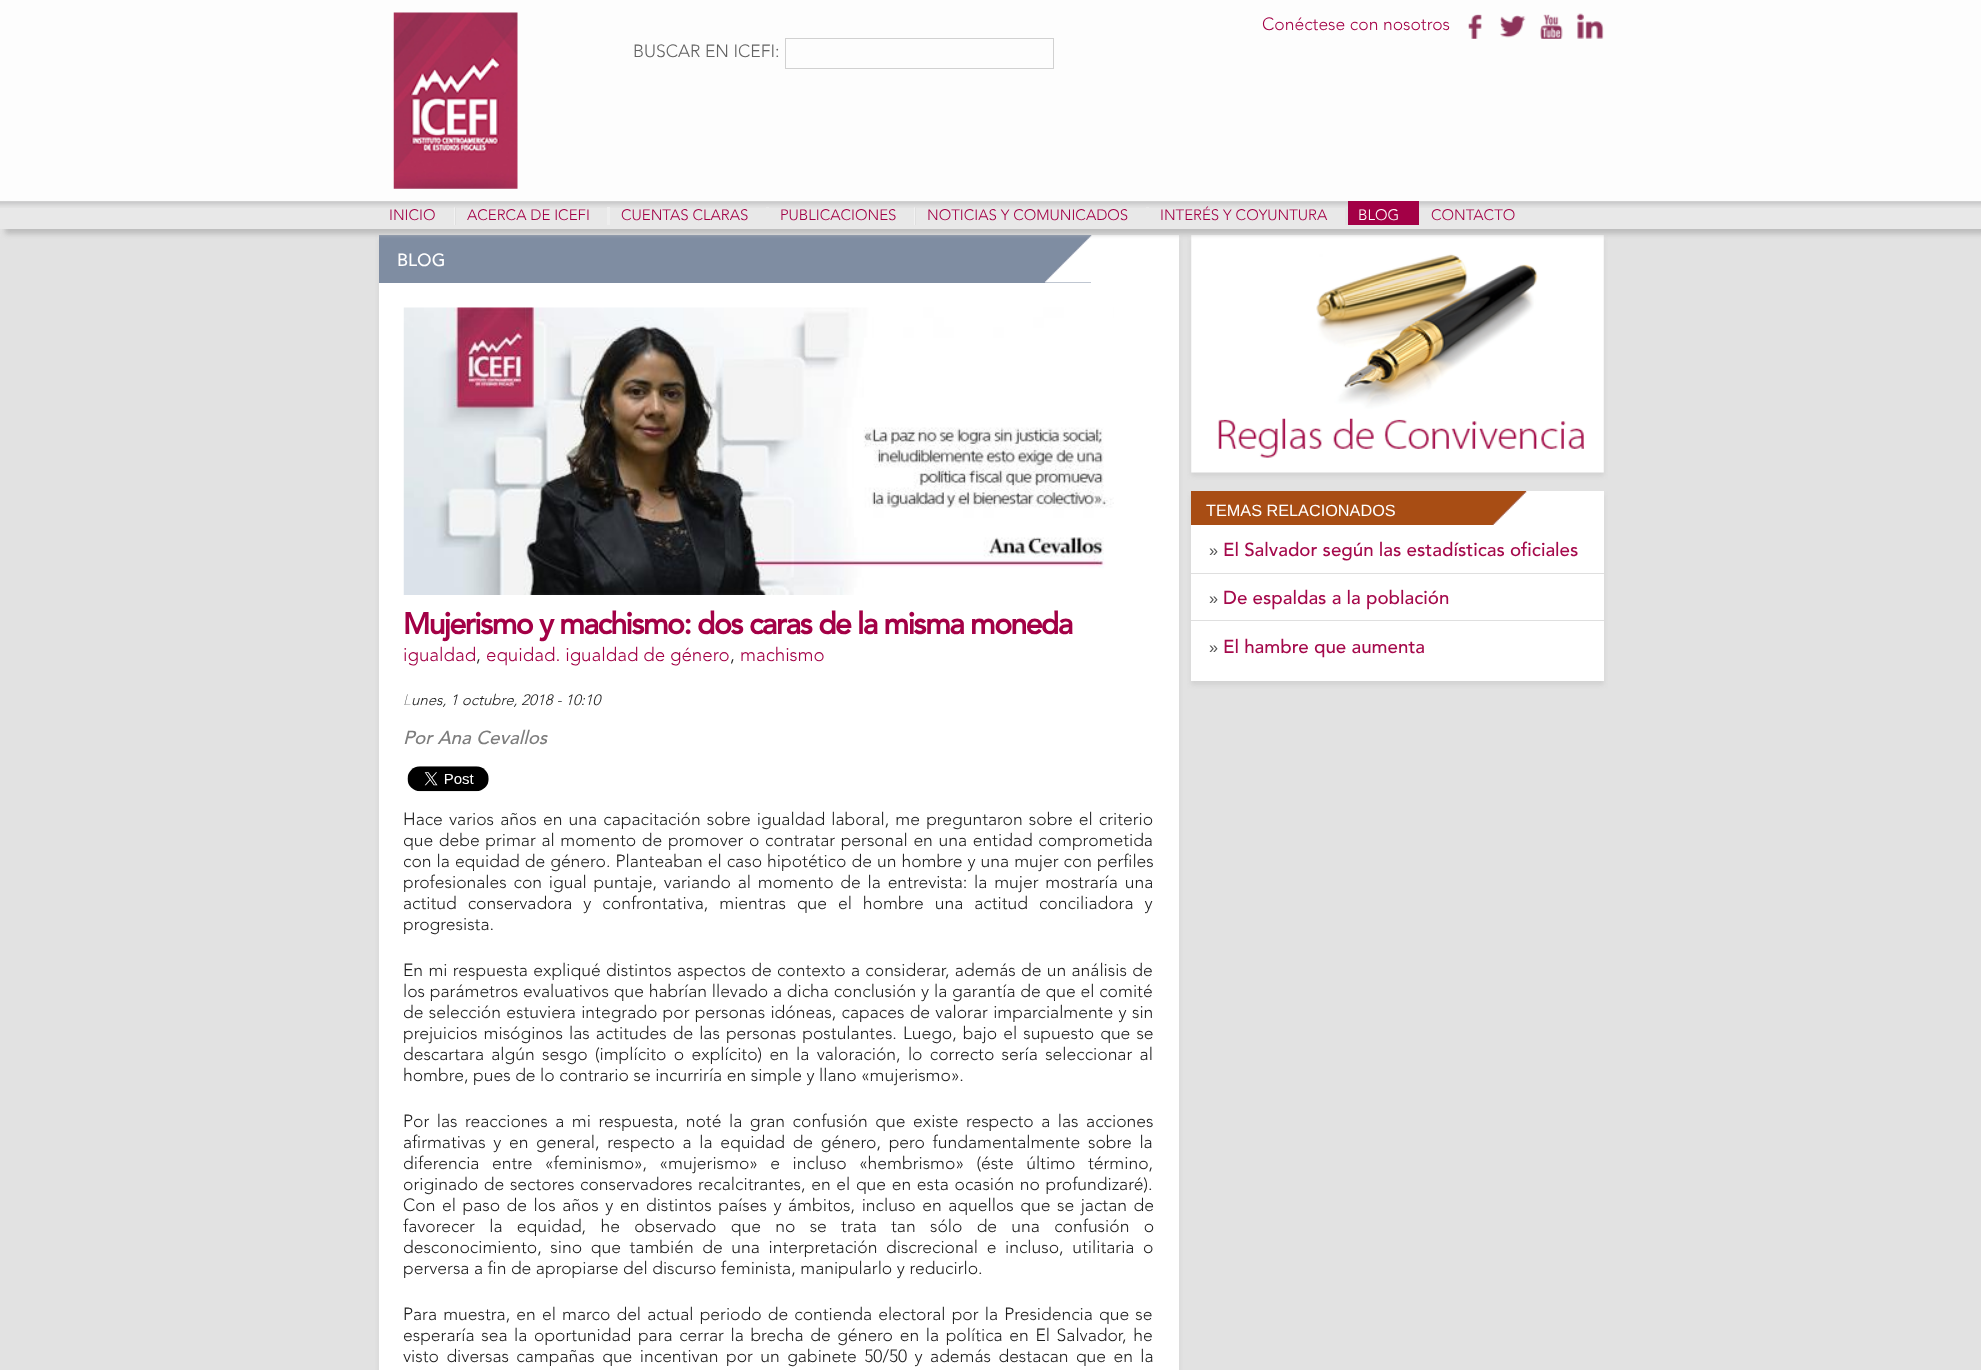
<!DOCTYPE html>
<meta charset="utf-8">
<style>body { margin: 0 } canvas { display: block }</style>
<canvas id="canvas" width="1981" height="1370"></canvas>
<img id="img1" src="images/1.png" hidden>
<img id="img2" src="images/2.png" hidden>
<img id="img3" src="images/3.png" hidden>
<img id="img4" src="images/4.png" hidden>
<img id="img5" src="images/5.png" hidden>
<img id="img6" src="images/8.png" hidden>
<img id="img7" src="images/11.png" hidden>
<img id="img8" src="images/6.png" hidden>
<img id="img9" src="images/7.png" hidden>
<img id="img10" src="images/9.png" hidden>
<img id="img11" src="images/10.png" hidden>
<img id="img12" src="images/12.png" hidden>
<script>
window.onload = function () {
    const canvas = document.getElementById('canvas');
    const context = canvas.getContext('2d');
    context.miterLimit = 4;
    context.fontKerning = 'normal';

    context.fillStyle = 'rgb(226, 226, 226)';
    context.fillRect(0, 0, 1981, 1370);
    context.fillStyle = 'rgb(253, 253, 253)';
    context.fillRect(0, 0, 1981, 201);
    context.drawImage(document.getElementById('img1'), 393, 12, 125, 177);
    context.drawImage(document.getElementById('img2'), 1468, 14, 14, 25);
    context.drawImage(document.getElementById('img3'), 1500, 15, 26, 23);
    context.drawImage(document.getElementById('img4'), 1540, 14, 23, 25);
    context.drawImage(document.getElementById('img5'), 1576, 13, 28, 26);
    context.strokeStyle = 'rgb(209, 209, 209)';
    context.strokeRect(785.5, 38.5, 268, 30);
    context.fillStyle = 'rgb(210, 210, 210)';
    context.filter = 'blur(2px)';
    context.beginPath();
    context.rect(379, 239, 800, 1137);
    context.fill();
    context.filter = 'none';
    context.fillStyle = 'rgb(255, 255, 255)';
    context.fillRect(379, 235, 800, 1135);
    context.fillStyle = 'rgb(127, 141, 162)';
    context.fillRect(379, 235, 712, 48);
    context.drawImage(document.getElementById('img6'), 1044, 235, 48, 48);
    context.fillStyle = 'rgb(210, 210, 210)';
    context.filter = 'blur(2px)';
    context.beginPath();
    context.rect(1191, 239, 413, 237);
    context.fill();
    context.filter = 'none';
    context.drawImage(document.getElementById('img7'), 1191, 235, 413, 238);
    context.fillStyle = 'rgb(189, 189, 189)';
    context.filter = 'blur(2.5px)';
    context.beginPath();
    context.rect(5, 206, 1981, 28);
    context.fill();
    context.filter = 'none';
    context.fillStyle = 'rgb(232, 232, 232)';
    context.fillRect(0, 201, 1981, 28);
    context.drawImage(document.getElementById('img8'), 0, 201, 1981, 7);
    context.drawImage(document.getElementById('img9'), 454, 207, 2, 18);
    context.fillStyle = 'rgb(238, 238, 238)';
    context.fillRect(607, 207, 3, 18);
    context.fillStyle = 'rgb(232, 232, 232)';
    context.fillRect(766, 207, 3, 1);
    context.drawImage(document.getElementById('img9'), 914, 207, 2, 18);
    context.fillRect(1146, 207, 3, 1);
    context.fillStyle = 'rgb(227, 227, 227)';
    context.fillRect(1345, 207, 3, 18);
    context.fillStyle = 'rgb(163, 0, 70)';
    context.fillRect(1348, 201, 71, 24);
    context.drawImage(document.getElementById('img10'), 403, 307, 711, 288);
    context.drawImage(document.getElementById('img11'), 407, 766, 82, 26);
    context.fillStyle = 'rgb(210, 210, 210)';
    context.filter = 'blur(2px)';
    context.beginPath();
    context.rect(1191, 495, 413, 190);
    context.fill();
    context.filter = 'none';
    context.fillStyle = 'rgb(255, 255, 255)';
    context.fillRect(1191, 491, 413, 190);
    context.fillStyle = 'rgb(168, 77, 20)';
    context.fillRect(1191, 491, 335, 34);
    context.drawImage(document.getElementById('img12'), 1492, 491, 35, 34);
    context.fillStyle = 'rgb(223, 223, 223)';
    context.fillRect(1191, 573, 413, 1);
    context.fillRect(1191, 620, 413, 1);
    context.font = '300 17.5px Avenir';
    context.fillStyle = 'rgb(163, 0, 70)';
    context.fillText('Conéctese con nosotros', 1262, 30);
    context.fillStyle = 'rgb(99, 99, 99)';
    context.fillText('BUSCAR EN ICEFI:', 633, 57);
    context.font = '300 15px Avenir';
    context.fillStyle = 'rgb(163, 0, 70)';
    context.fillText('INICIO', 389, 220);
    context.fillText('ACERCA DE ICEFI', 467, 220);
    context.fillText('CUENTAS CLARAS', 621, 220);
    context.fillText('PUBLICACIONES', 780, 220);
    context.fillText('NOTICIAS Y COMUNICADOS', 927, 220);
    context.fillText('INTERÉS Y COYUNTURA', 1160, 220);
    context.fillStyle = 'rgb(255, 255, 255)';
    context.fillText('BLOG', 1358, 220);
    context.fillStyle = 'rgb(163, 0, 70)';
    context.fillText('CONTACTO', 1431, 220);
    context.font = '500 17.5px Avenir';
    context.fillStyle = 'rgb(255, 255, 255)';
    context.fillText('BLOG', 397, 266);
    context.letterSpacing = '-1.5px';
    context.font = 'bold 30px Avenir';
    context.fillStyle = 'rgb(163, 0, 70)';
    context.fillText('Mujerismo y machismo: dos caras de la misma moneda', 403, 634);
    context.letterSpacing = '0px';
    context.font = '300 18.75px Avenir';
    context.fillText('igualdad', 403, 661);
    context.fillStyle = 'rgb(33, 33, 33)';
    context.fillText(',', 476, 661);
    context.fillStyle = 'rgb(163, 0, 70)';
    context.fillText('equidad. igualdad de género', 486, 661);
    context.fillStyle = 'rgb(33, 33, 33)';
    context.fillText(',', 730, 661);
    context.fillStyle = 'rgb(163, 0, 70)';
    context.fillText('machismo', 740, 661);
    context.font = 'italic 100 15px Noto Sans';
    context.fillStyle = 'rgb(33, 33, 33)';
    context.fillText('L', 403, 705);
    context.font = 'italic 300 15px Avenir';
    context.fillText('unes, 1 octubre, 2018 - 10:10', 411, 705);
    context.font = 'italic 500 18.75px Avenir';
    context.fillStyle = 'rgb(125, 125, 125)';
    context.fillText('Por Ana Cevallos', 403, 744);
    context.wordSpacing = '1.6px';
    context.font = '300 17.5px Avenir';
    context.fillStyle = 'rgb(33, 33, 33)';
    context.fillText('Hace varios años en una capacitación sobre igualdad laboral, me preguntaron sobre el criterio', 403, 825);
    context.wordSpacing = '1.1px';
    context.fillText('que debe primar al momento de promover o contratar personal en una entidad comprometida', 403, 846);
    context.wordSpacing = '0.5px';
    context.fillText('con la equidad de género. Planteaban el caso hipotético de un hombre y una mujer con perfiles', 403, 867);
    context.wordSpacing = '2.25px';
    context.fillText('profesionales con igual puntaje, variando al momento de la entrevista: la mujer mostraría una', 403, 888);
    context.wordSpacing = '6.4px';
    context.fillText('actitud conservadora y confrontativa, mientras que el hombre una actitud conciliadora y', 403, 909);
    context.wordSpacing = '0px';
    context.fillText('progresista.', 403, 930);
    context.wordSpacing = '0.75px';
    context.fillText('En mi respuesta expliqué distintos aspectos de contexto a considerar, además de un análisis de', 403, 976);
    context.wordSpacing = '0.25px';
    context.fillText('los parámetros evaluativos que habrían llevado a dicha conclusión y la garantía de que el comité', 403, 997);
    context.wordSpacing = '0.75px';
    context.fillText('de selección estuviera integrado por personas idóneas, capaces de valorar imparcialmente y sin', 403, 1018);
    context.wordSpacing = '1.5px';
    context.fillText('prejuicios misóginos las actitudes de las personas postulantes. Luego, bajo el supuesto que se', 403, 1039);
    context.wordSpacing = '2.75px';
    context.fillText('descartara algún sesgo (implícito o explícito) en la valoración, lo correcto sería seleccionar al', 403, 1060);
    context.wordSpacing = '0px';
    context.fillText('hombre, pues de lo contrario se incurriría en simple y llano «mujerismo».', 403, 1081);
    context.wordSpacing = '3px';
    context.fillText('Por las reacciones a mi respuesta, noté la gran confusión que existe respecto a las acciones', 403, 1127);
    context.wordSpacing = '3.1px';
    context.fillText('afirmativas y en general, respecto a la equidad de género, pero fundamentalmente sobre la', 403, 1148);
    context.wordSpacing = '8px';
    context.fillText('diferencia entre «feminismo», «mujerismo» e incluso «hembrismo» (éste último término,', 403, 1169);
    context.wordSpacing = '1.1px';
    context.fillText('originado de sectores conservadores recalcitrantes, en el que en esta ocasión no profundizaré).', 403, 1190);
    context.wordSpacing = '2px';
    context.fillText('Con el paso de los años y en distintos países y ámbitos, incluso en aquellos que se jactan de', 403, 1211);
    context.wordSpacing = '9.75px';
    context.fillText('favorecer la equidad, he observado que no se trata tan sólo de una confusión o', 403, 1232);
    context.wordSpacing = '4.1px';
    context.fillText('desconocimiento, sino que también de una interpretación discrecional e incluso, utilitaria o', 403, 1253);
    context.wordSpacing = '0px';
    context.fillText('perversa a fin de apropiarse del discurso feminista, manipularlo y reducirlo.', 403, 1274);
    context.wordSpacing = '1.6px';
    context.fillText('Para muestra, en el marco del actual periodo de contienda electoral por la Presidencia que se', 403, 1320);
    context.wordSpacing = '2.1px';
    context.fillText('esperaría sea la oportunidad para cerrar la brecha de género en la política en El Salvador, he', 403, 1341);
    context.wordSpacing = '2.9px';
    context.fillText('visto diversas campañas que incentivan por un gabinete 50/50 y además destacan que en la', 403, 1362);
    context.wordSpacing = '0px';
    context.font = '16.25px Liberation Sans';
    context.fillStyle = 'rgb(255, 255, 255)';
    context.fillText('TEMAS RELACIONADOS', 1206, 516);
    context.fillStyle = 'rgb(85, 85, 85)';
    context.fillText('»', 1209, 556);
    context.font = '500 18.75px Avenir';
    context.fillStyle = 'rgb(165, 9, 75)';
    context.fillText('El Salvador según las estadísticas oficiales', 1223, 556);
    context.font = '16.25px Liberation Sans';
    context.fillStyle = 'rgb(85, 85, 85)';
    context.fillText('»', 1209, 604);
    context.font = '500 18.75px Avenir';
    context.fillStyle = 'rgb(165, 9, 75)';
    context.fillText('De espaldas a la población', 1223, 604);
    context.font = '16.25px Liberation Sans';
    context.fillStyle = 'rgb(85, 85, 85)';
    context.fillText('»', 1209, 653);
    context.font = '500 18.75px Avenir';
    context.fillStyle = 'rgb(165, 9, 75)';
    context.fillText('El hambre que aumenta', 1223, 653);
};
</script>
